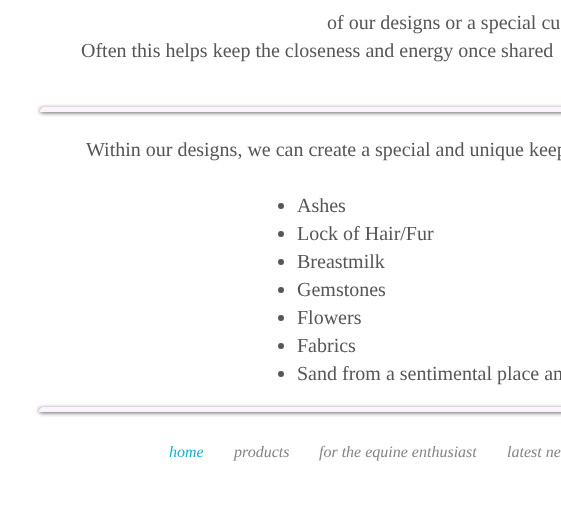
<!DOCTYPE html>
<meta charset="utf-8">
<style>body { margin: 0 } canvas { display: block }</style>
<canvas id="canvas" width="561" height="509"></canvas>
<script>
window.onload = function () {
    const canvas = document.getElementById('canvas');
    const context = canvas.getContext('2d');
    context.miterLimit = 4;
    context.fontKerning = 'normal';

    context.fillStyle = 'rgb(255, 255, 255)';
    context.fillRect(0, 0, 561, 509);
    context.save();
    context.beginPath();
    context.moveTo(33, 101);
    context.lineTo(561, 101);
    context.lineTo(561, 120);
    context.lineTo(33, 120);
    context.closePath();
    context.moveTo(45, 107);
    context.lineTo(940, 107);
    context.bezierCurveTo(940, 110, 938, 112, 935, 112);
    context.lineTo(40, 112);
    context.bezierCurveTo(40, 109, 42, 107, 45, 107);
    context.closePath();
    context.clip('evenodd');
    context.fillStyle = 'rgba(0, 0, 0, 0.6)';
    context.filter = 'blur(2px)';
    context.beginPath();
    context.roundRect(40, 108, 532, 5, 5);
    context.fill();
    context.filter = 'none';
    context.restore();
    context.fillStyle = 'rgba(249, 234, 250, 0.58)';
    context.beginPath();
    context.moveTo(45, 107);
    context.lineTo(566, 107);
    context.bezierCurveTo(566, 110, 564, 112, 561, 112);
    context.lineTo(40, 112);
    context.bezierCurveTo(40, 109, 42, 107, 45, 107);
    context.closePath();
    context.fill();
    context.fillStyle = 'rgb(87, 86, 86)';
    context.beginPath();
    context.arc(281, 206, 3, 0, 2 * Math.PI);
    context.fill();
    context.beginPath();
    context.arc(281, 234, 3, 0, 2 * Math.PI);
    context.fill();
    context.beginPath();
    context.arc(281, 262, 3, 0, 2 * Math.PI);
    context.fill();
    context.beginPath();
    context.arc(281, 290, 3, 0, 2 * Math.PI);
    context.fill();
    context.beginPath();
    context.arc(281, 318, 3, 0, 2 * Math.PI);
    context.fill();
    context.beginPath();
    context.arc(281, 346, 3, 0, 2 * Math.PI);
    context.fill();
    context.beginPath();
    context.arc(281, 374, 3, 0, 2 * Math.PI);
    context.fill();
    context.save();
    context.beginPath();
    context.moveTo(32, 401);
    context.lineTo(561, 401);
    context.lineTo(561, 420);
    context.lineTo(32, 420);
    context.closePath();
    context.moveTo(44, 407);
    context.lineTo(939, 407);
    context.bezierCurveTo(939, 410, 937, 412, 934, 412);
    context.lineTo(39, 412);
    context.bezierCurveTo(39, 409, 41, 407, 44, 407);
    context.closePath();
    context.clip('evenodd');
    context.fillStyle = 'rgba(0, 0, 0, 0.6)';
    context.filter = 'blur(2px)';
    context.beginPath();
    context.roundRect(39, 408, 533, 5, 5);
    context.fill();
    context.filter = 'none';
    context.restore();
    context.fillStyle = 'rgba(249, 234, 250, 0.58)';
    context.beginPath();
    context.moveTo(44, 407);
    context.lineTo(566, 407);
    context.bezierCurveTo(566, 410, 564, 412, 561, 412);
    context.lineTo(39, 412);
    context.bezierCurveTo(39, 409, 41, 407, 44, 407);
    context.closePath();
    context.fill();
    context.font = '20px Liberation Serif';
    context.fillStyle = 'rgb(87, 86, 86)';
    context.fillText('of our designs or a special cu', 327, 29);
    context.fillText('Often this helps keep the closeness and energy once shared', 81, 57);
    context.fillText('Within our designs, we can create a special and unique keep', 86, 156);
    context.fillText('Ashes', 297, 212);
    context.fillText('Lock of Hair/Fur', 297, 240);
    context.fillText('Breastmilk', 297, 268);
    context.fillText('Gemstones', 297, 296);
    context.fillText('Flowers', 297, 324);
    context.fillText('Fabrics', 297, 352);
    context.fillText('Sand from a sentimental place an', 297, 380);
    context.font = 'italic 16px Liberation Serif';
    context.fillStyle = 'rgb(21, 175, 209)';
    context.fillText('home', 169, 457);
    context.fillStyle = 'rgb(133, 132, 132)';
    context.fillText('products', 234, 457);
    context.fillText('for the equine enthusiast', 319, 457);
    context.fillText('latest ne', 507, 457);
};
</script>
